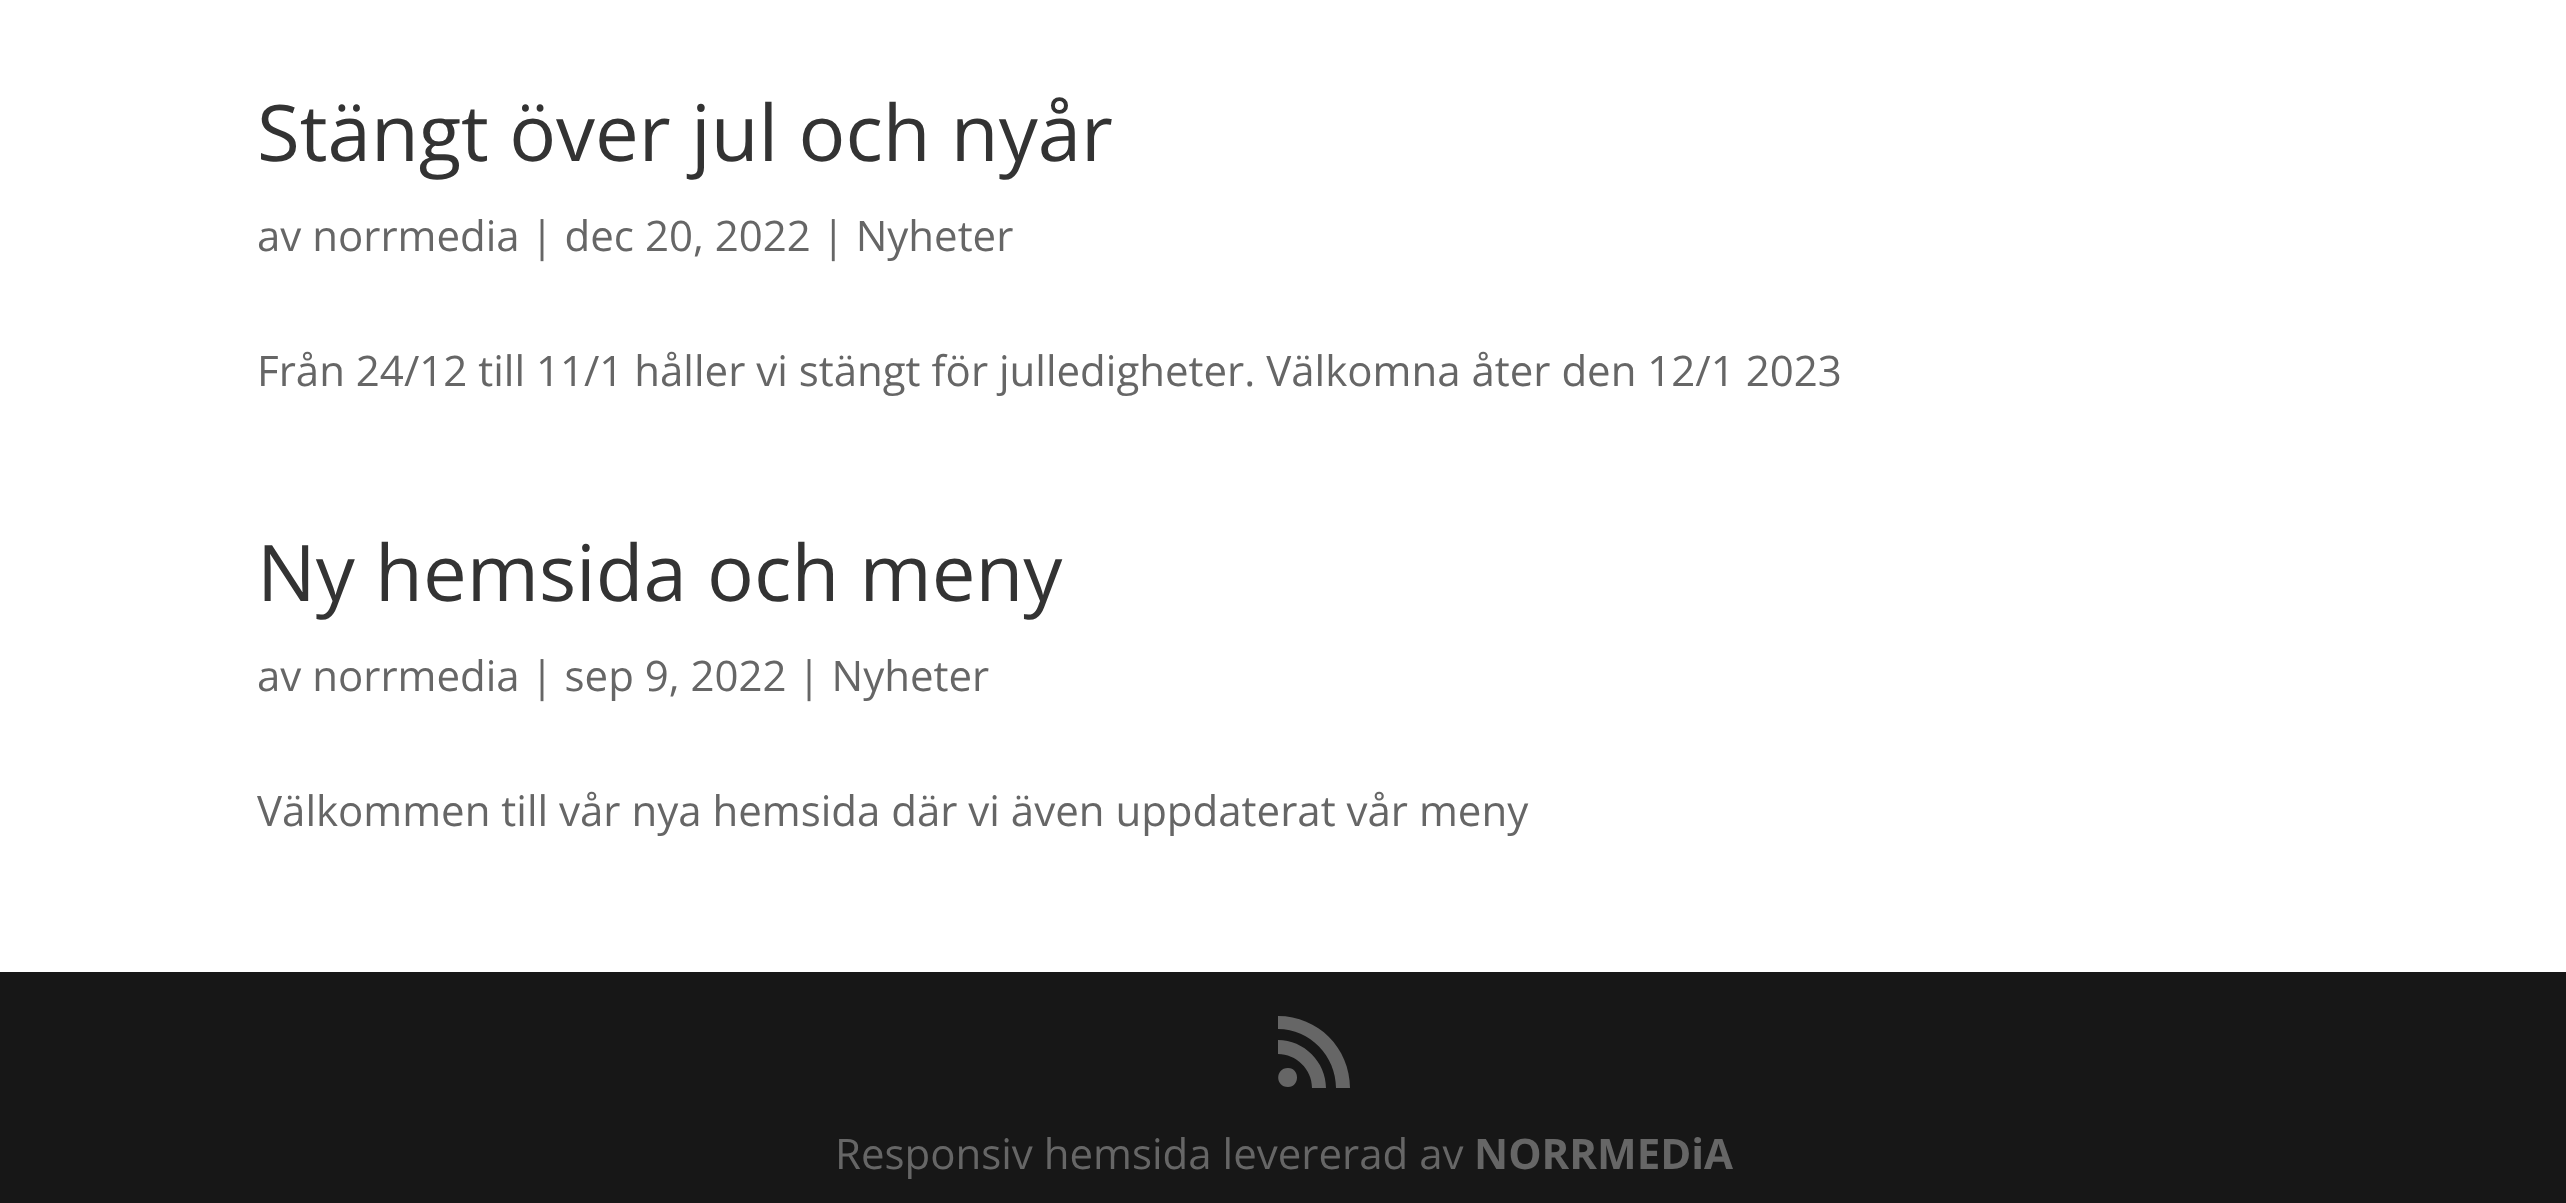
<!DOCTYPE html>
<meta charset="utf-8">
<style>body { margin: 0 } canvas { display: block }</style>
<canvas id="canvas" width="2566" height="1203"></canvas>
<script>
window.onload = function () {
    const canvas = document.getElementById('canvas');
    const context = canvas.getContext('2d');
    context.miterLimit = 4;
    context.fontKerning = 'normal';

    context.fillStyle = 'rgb(255, 255, 255)';
    context.fillRect(0, 0, 2566, 1203);
    context.fillStyle = 'rgb(23, 23, 23)';
    context.fillRect(0, 972, 2566, 231);
    context.fillStyle = 'rgb(102, 102, 102)';
    context.beginPath();
    context.moveTo(1278, 1016);
    context.lineTo(1278, 1029);
    context.bezierCurveTo(1310, 1029, 1336, 1056, 1336, 1088);
    context.lineTo(1350, 1088);
    context.bezierCurveTo(1350, 1048, 1318, 1016, 1278, 1016);
    context.closePath();
    context.moveTo(1312, 1088);
    context.lineTo(1326, 1088);
    context.bezierCurveTo(1326, 1062, 1304, 1040, 1278, 1040);
    context.lineTo(1278, 1054);
    context.bezierCurveTo(1296, 1054, 1312, 1069, 1312, 1088);
    context.closePath();
    context.moveTo(1288, 1087);
    context.bezierCurveTo(1300, 1087, 1300, 1068, 1288, 1068);
    context.bezierCurveTo(1275, 1068, 1275, 1087, 1288, 1087);
    context.closePath();
    context.fill();
    context.font = '78px Open Sans';
    context.fillStyle = 'rgb(51, 51, 51)';
    context.fillText('Stängt över jul och nyår', 257, 161);
    context.font = '42px Open Sans';
    context.fillStyle = 'rgb(102, 102, 102)';
    context.fillText('av norrmedia | dec 20, 2022 | Nyheter', 257, 251);
    context.fillText('Från 24/12 till 11/1 håller vi stängt för julledigheter. Välkomna åter den 12/1 2023', 257, 386);
    context.font = '78px Open Sans';
    context.fillStyle = 'rgb(51, 51, 51)';
    context.fillText('Ny hemsida och meny', 257, 601);
    context.font = '42px Open Sans';
    context.fillStyle = 'rgb(102, 102, 102)';
    context.fillText('av norrmedia | sep 9, 2022 | Nyheter', 257, 691);
    context.fillText('Välkommen till vår nya hemsida där vi även uppdaterat vår meny', 257, 826);
    context.fillText('Responsiv hemsida levererad av', 835, 1169);
    context.font = 'bold 42px Open Sans';
    context.fillText('NORRMEDiA', 1474, 1169);
};
</script>
